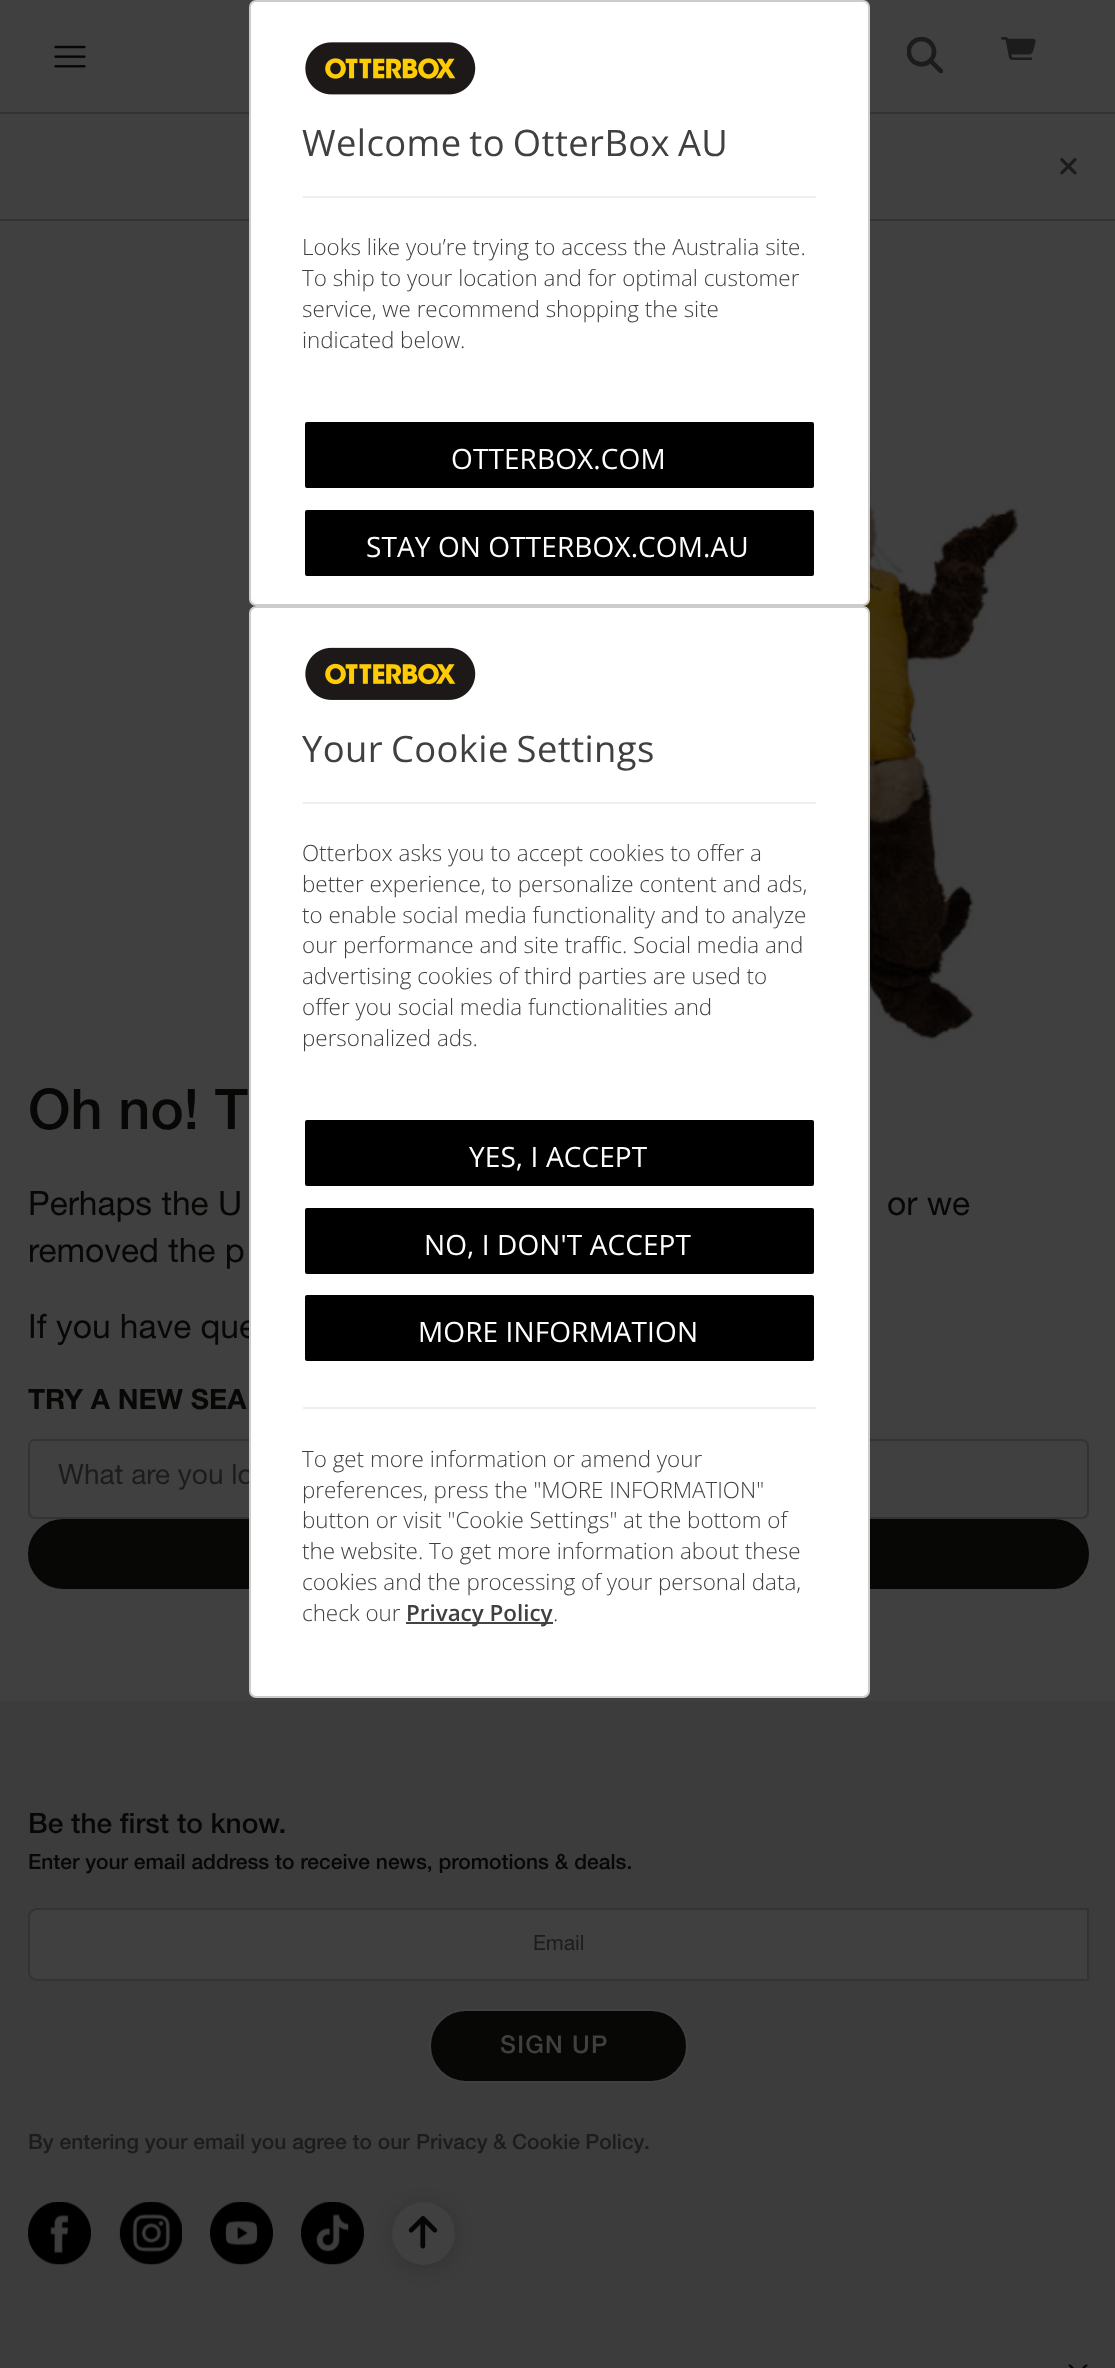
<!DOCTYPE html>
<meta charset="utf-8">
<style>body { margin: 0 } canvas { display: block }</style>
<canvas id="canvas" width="1115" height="2368"></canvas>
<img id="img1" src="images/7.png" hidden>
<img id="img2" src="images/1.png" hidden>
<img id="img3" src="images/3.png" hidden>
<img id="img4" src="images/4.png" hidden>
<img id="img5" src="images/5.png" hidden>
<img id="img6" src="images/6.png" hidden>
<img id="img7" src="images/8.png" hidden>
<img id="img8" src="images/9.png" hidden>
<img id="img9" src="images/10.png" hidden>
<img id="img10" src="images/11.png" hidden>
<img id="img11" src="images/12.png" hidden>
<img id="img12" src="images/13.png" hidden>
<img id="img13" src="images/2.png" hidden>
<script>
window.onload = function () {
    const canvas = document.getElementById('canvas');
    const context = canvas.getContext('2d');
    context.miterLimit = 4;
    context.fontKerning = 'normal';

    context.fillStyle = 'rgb(64, 64, 64)';
    context.fillRect(0, 0, 1115, 2368);
    context.fillStyle = 'rgb(51, 51, 51)';
    context.fillRect(0, 219, 1115, 2);
    context.fillRect(0, 112, 1115, 2);
    context.drawImage(document.getElementById('img1'), 863, 332, 156, 718);
    context.fillStyle = 'rgb(255, 255, 255)';
    context.beginPath();
    context.roundRect(250, 1, 619, 604, 6);
    context.fill();
    context.strokeStyle = 'rgb(204, 204, 204)';
    context.lineWidth = 2;
    context.stroke();
    context.drawImage(document.getElementById('img2'), 305, 42, 171, 53);
    context.fillStyle = 'rgb(238, 238, 238)';
    context.fillRect(303, 196, 513, 2);
    context.fillStyle = 'rgb(0, 0, 0)';
    context.beginPath();
    context.roundRect(304, 421, 511, 68, 3);
    context.fill();
    context.strokeStyle = 'rgb(255, 255, 255)';
    context.stroke();
    context.beginPath();
    context.roundRect(304, 509, 511, 68, 3);
    context.fill();
    context.stroke();
    context.drawImage(document.getElementById('img3'), 54, 45, 32, 23);
    context.drawImage(document.getElementById('img4'), 907, 37, 36, 37);
    context.drawImage(document.getElementById('img5'), 1001, 37, 35, 23);
    context.drawImage(document.getElementById('img6'), 1060, 158, 17, 17);
    context.beginPath();
    context.roundRect(29, 1440, 1059, 78, 6);
    context.strokeStyle = 'rgb(51, 51, 51)';
    context.stroke();
    context.fillStyle = 'rgb(7, 7, 6)';
    context.beginPath();
    context.roundRect(29, 1520, 1059, 68, 34);
    context.fill();
    context.strokeStyle = 'rgb(7, 7, 6)';
    context.stroke();
    context.fillStyle = 'rgb(60, 60, 60)';
    context.fillRect(0, 1701, 1115, 667);
    context.fillStyle = 'rgb(64, 64, 64)';
    context.beginPath();
    context.roundRect(29, 1909, 1059, 71, [8, 0, 0, 8]);
    context.fill();
    context.strokeStyle = 'rgb(51, 51, 51)';
    context.stroke();
    context.fillStyle = 'rgb(7, 7, 6)';
    context.beginPath();
    context.roundRect(430, 2010, 257, 72, 36);
    context.fill();
    context.strokeStyle = 'rgb(64, 64, 64)';
    context.stroke();
    context.drawImage(document.getElementById('img7'), 28, 2202, 63, 63);
    context.drawImage(document.getElementById('img8'), 119, 2202, 63, 63);
    context.drawImage(document.getElementById('img9'), 210, 2202, 63, 63);
    context.drawImage(document.getElementById('img10'), 301, 2202, 63, 63);
    context.fillStyle = 'rgba(9, 9, 8, 0.2)';
    context.filter = 'blur(9px)';
    context.beginPath();
    context.roundRect(392, 2205, 63, 63, 31.5);
    context.fill();
    context.filter = 'none';
    context.fillStyle = 'rgb(64, 64, 64)';
    context.beginPath();
    context.arc(423.5, 2233.5, 31.5, 0, 2 * Math.PI);
    context.fill();
    context.drawImage(document.getElementById('img11'), 408, 2216, 30, 33);
    context.drawImage(document.getElementById('img12'), 1068, 2364, 20, 4);
    context.letterSpacing = '0.4px';
    context.wordSpacing = '-2px';
    context.font = '36.4px Open Sans';
    context.fillText('Welcome to OtterBox AU', 302, 156);
    context.letterSpacing = '0px';
    context.wordSpacing = '0px';
    context.font = '300 22.4px Open Sans';
    context.fillText('Looks like you’re trying to access the Australia site.', 302, 255);
    context.fillText('To ship to your location and for optimal customer', 302, 286);
    context.fillText('service, we recommend shopping the site', 302, 317);
    context.fillText('indicated below.', 302, 348);
    context.letterSpacing = '0.1px';
    context.font = '28px Open Sans';
    context.fillStyle = 'rgb(255, 255, 255)';
    context.fillText('OTTERBOX.COM', 451, 469);
    context.fillText('STAY ON OTTERBOX.COM.AU', 366, 557);
    context.letterSpacing = '0px';
    context.font = '500 56px Helvetica Neue';
    context.fillStyle = 'rgb(7, 7, 6)';
    context.fillText('Oh no! T', 28, 1129);
    context.font = '33.5px Helvetica Neue';
    context.fillText('Perhaps the U', 28, 1215);
    context.fillText('or we', 887, 1215);
    context.fillText('removed the p', 28, 1262);
    context.fillText('If you have que', 28, 1338);
    context.font = 'bold 28px Helvetica Neue';
    context.fillText('TRY A NEW SEA', 28, 1409);
    context.font = '28px Helvetica Neue';
    context.fillStyle = 'rgb(28, 28, 29)';
    context.fillText('What are you lo', 58, 1484);
    context.fillStyle = 'rgb(255, 255, 255)';
    context.beginPath();
    context.roundRect(250, 607, 619, 1090, 6);
    context.fill();
    context.strokeStyle = 'rgb(204, 204, 204)';
    context.stroke();
    context.fillStyle = 'rgb(0, 0, 0)';
    context.beginPath();
    context.roundRect(304, 1294, 511, 68, 3);
    context.fill();
    context.strokeStyle = 'rgb(255, 255, 255)';
    context.stroke();
    context.letterSpacing = '0.1px';
    context.font = '28px Open Sans';
    context.fillStyle = 'rgb(255, 255, 255)';
    context.fillText('MORE INFORMATION', 418, 1342);
    context.fillStyle = 'rgb(0, 0, 0)';
    context.beginPath();
    context.roundRect(304, 1207, 511, 68, 3);
    context.fill();
    context.stroke();
    context.fillStyle = 'rgb(255, 255, 255)';
    context.fillText('NO, I DON\'T ACCEPT', 424, 1255);
    context.fillStyle = 'rgb(0, 0, 0)';
    context.beginPath();
    context.roundRect(304, 1119, 511, 68, 3);
    context.fill();
    context.stroke();
    context.fillStyle = 'rgb(255, 255, 255)';
    context.fillText('YES, I ACCEPT', 469, 1167);
    context.drawImage(document.getElementById('img13'), 305, 647, 171, 53);
    context.letterSpacing = '0px';
    context.font = '300 22.4px Open Sans';
    context.fillStyle = 'rgb(64, 64, 64)';
    context.fillText('.', 553, 1621);
    context.fillStyle = 'rgb(68, 68, 68)';
    context.fillRect(406, 1622, 147, 2);
    context.font = '600 22.4px Open Sans';
    context.fillStyle = 'rgb(64, 64, 64)';
    context.fillText('Privacy Policy', 406, 1621);
    context.font = '300 22.4px Open Sans';
    context.fillText('check our', 302, 1621);
    context.fillText('cookies and the processing of your personal data,', 302, 1590);
    context.fillText('the website. To get more information about these', 302, 1559);
    context.fillText('button or visit "Cookie Settings" at the bottom of', 302, 1528);
    context.fillText('preferences, press the "MORE INFORMATION"', 302, 1498);
    context.fillText('To get more information or amend your', 302, 1467);
    context.fillText('personalized ads.', 302, 1046);
    context.fillText('offer you social media functionalities and', 302, 1015);
    context.fillText('advertising cookies of third parties are used to', 302, 984);
    context.fillText('our performance and site traffic. Social media and', 302, 953);
    context.fillText('to enable social media functionality and to analyze', 302, 923);
    context.fillText('better experience, to personalize content and ads,', 302, 892);
    context.fillText('Otterbox asks you to accept cookies to offer a', 302, 861);
    context.letterSpacing = '0.4px';
    context.wordSpacing = '-2px';
    context.font = '36.4px Open Sans';
    context.fillText('Your Cookie Settings', 302, 762);
    context.fillStyle = 'rgb(238, 238, 238)';
    context.fillRect(303, 1407, 513, 2);
    context.fillRect(303, 802, 513, 2);
    context.letterSpacing = '0px';
    context.wordSpacing = '0px';
    context.font = '500 28px Helvetica Neue';
    context.fillStyle = 'rgb(7, 7, 6)';
    context.fillText('Be the first to know.', 28, 1833);
    context.font = '500 21px Helvetica Neue';
    context.fillText('Enter your email address to receive news, promotions & deals.', 28, 1869);
    context.font = '21px Helvetica Neue';
    context.fillStyle = 'rgb(28, 28, 29)';
    context.fillText('Email', 533, 1950);
    context.letterSpacing = '1.25px';
    context.font = '500 24.5px Helvetica Neue';
    context.fillStyle = 'rgb(64, 64, 64)';
    context.fillText('SIGN UP', 500, 2053);
    context.letterSpacing = '0px';
    context.font = '500 21px Helvetica Neue';
    context.fillStyle = 'rgb(28, 28, 29)';
    context.fillText('By entering your email you agree to our', 28, 2149);
    context.wordSpacing = '-0.5px';
    context.fillText('Privacy & Cookie Policy', 416, 2149);
    context.wordSpacing = '0px';
    context.fillText('.', 644, 2149);
};
</script>
